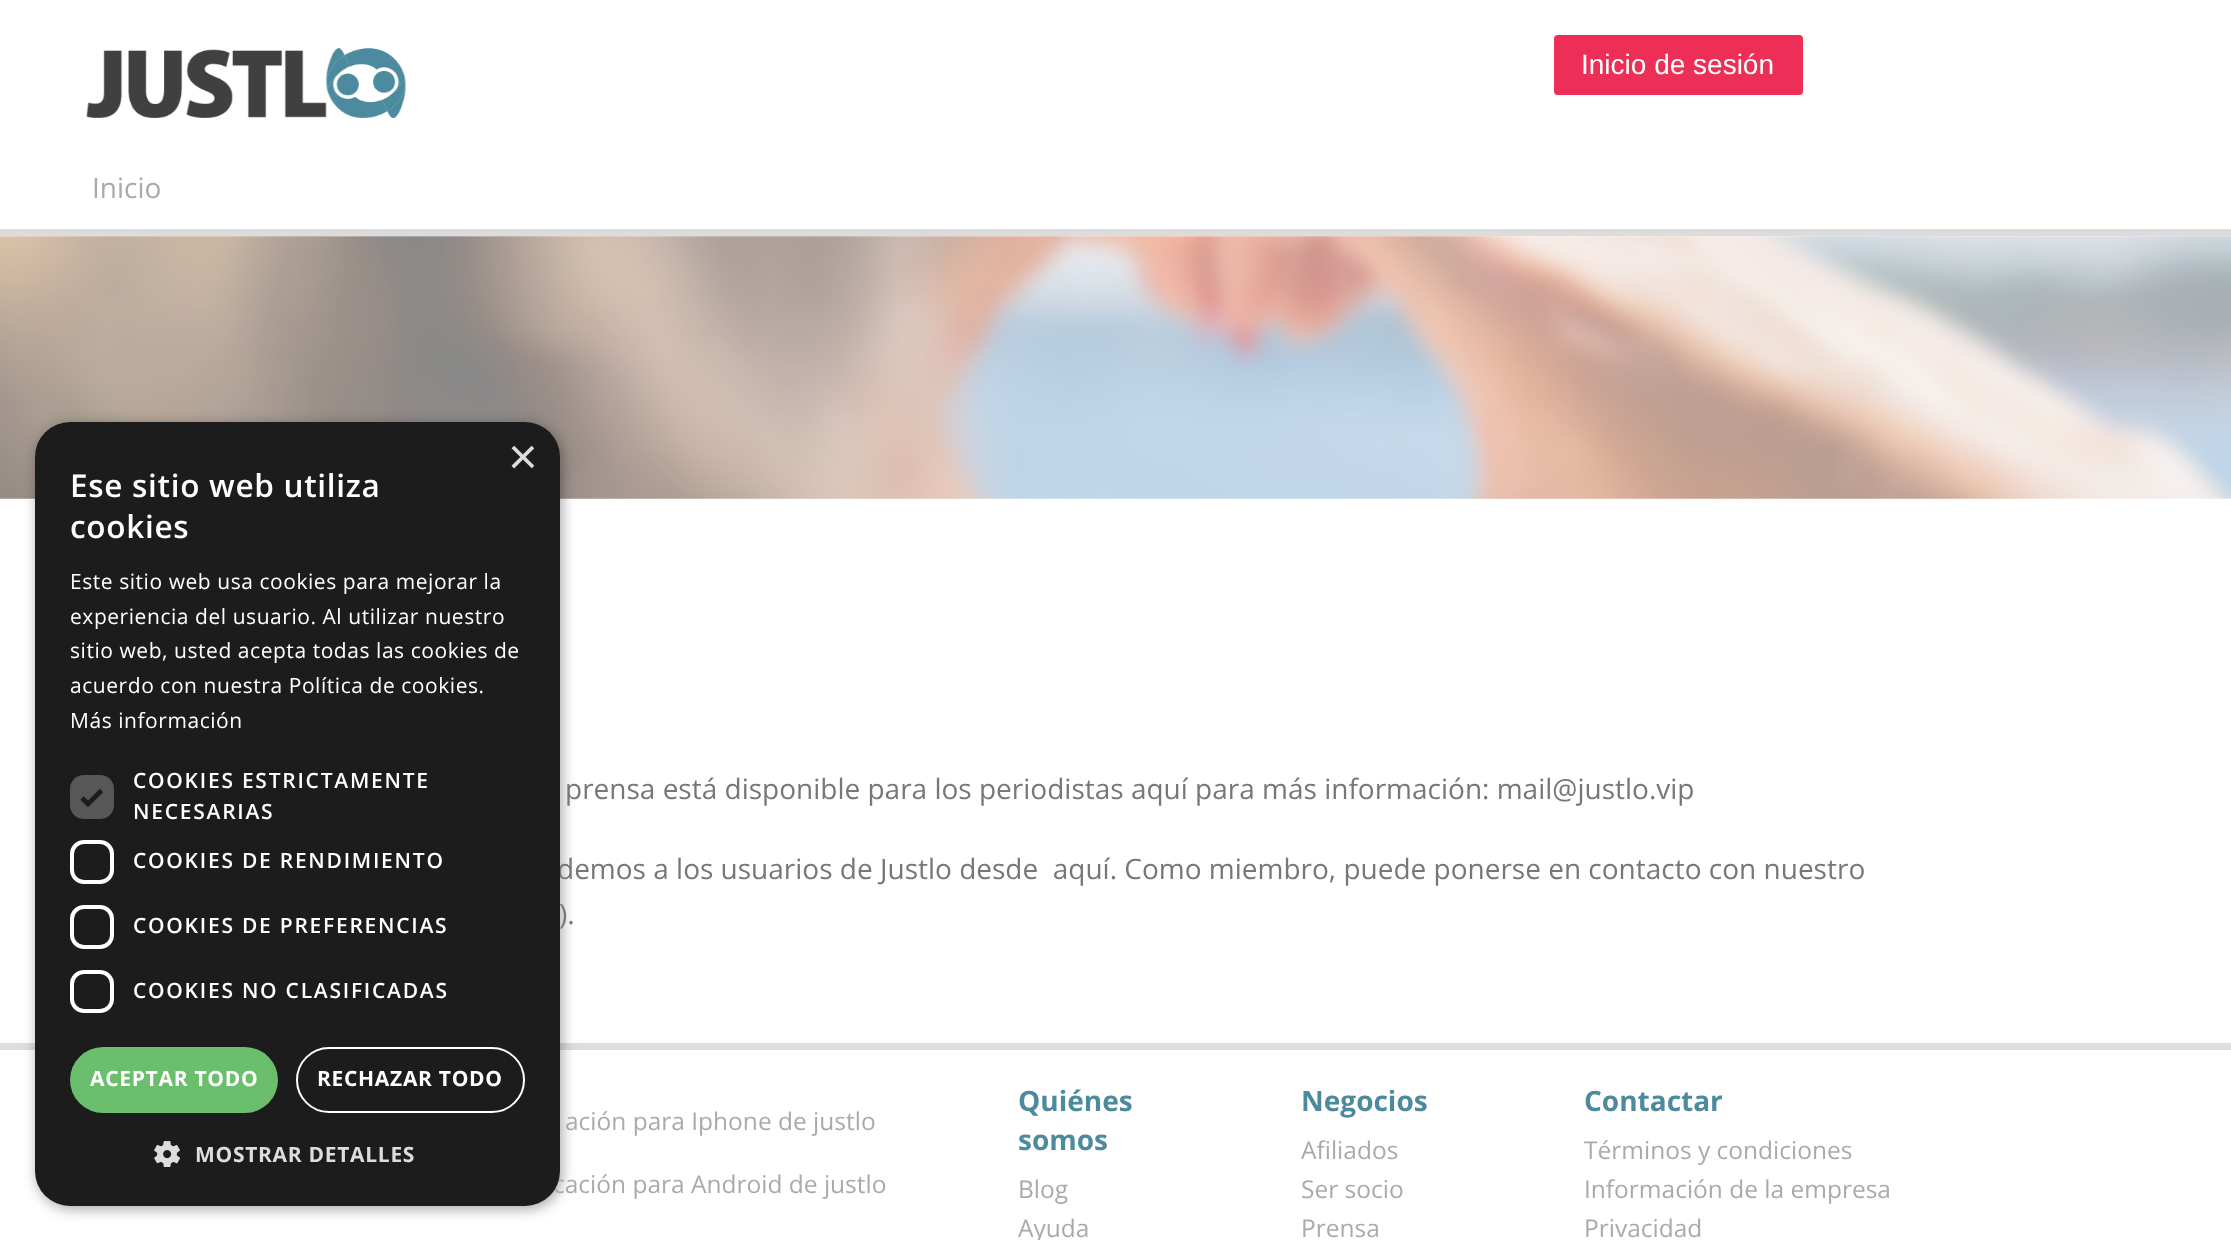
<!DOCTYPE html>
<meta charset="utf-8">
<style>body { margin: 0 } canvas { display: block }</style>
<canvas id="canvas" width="2231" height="1240"></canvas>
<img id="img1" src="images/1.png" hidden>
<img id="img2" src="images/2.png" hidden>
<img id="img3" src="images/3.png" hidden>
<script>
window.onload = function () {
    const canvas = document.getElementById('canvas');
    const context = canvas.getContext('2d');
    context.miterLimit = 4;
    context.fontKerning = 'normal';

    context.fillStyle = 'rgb(255, 255, 255)';
    context.fillRect(0, 0, 2231, 1240);
    context.drawImage(document.getElementById('img1'), 86, 48, 320, 70);
    context.fillStyle = 'rgb(237, 47, 87)';
    context.beginPath();
    context.roundRect(1554, 35, 249, 60, 4);
    context.fill();
    context.fillStyle = 'rgb(220, 220, 220)';
    context.fillRect(0, 229, 2231, 7);
    context.fillStyle = 'rgb(221, 221, 221)';
    context.fillRect(0, 1043, 2231, 7);
    context.drawImage(document.getElementById('img2'), 0, 236, 2231, 263);
    context.fillStyle = 'rgba(0, 0, 0, 0.35)';
    context.filter = 'blur(7px)';
    context.beginPath();
    context.roundRect(37, 425, 525, 784, 35);
    context.fill();
    context.filter = 'none';
    context.font = '28px Liberation Sans';
    context.fillStyle = 'rgb(255, 255, 255)';
    context.fillText('Inicio de sesión', 1581, 74);
    context.font = '28px Open Sans';
    context.fillStyle = 'rgb(170, 170, 170)';
    context.fillText('Inicio', 92, 198);
    context.fillStyle = 'rgb(119, 119, 119)';
    context.fillText('prensa está disponible para los periodistas aquí para más información: mail@justlo.vip', 565, 799);
    context.fillText('demos a los usuarios de Justlo desde  aquí. Como miembro, puede ponerse en contacto con nuestro', 557, 879);
    context.fillText(').', 559, 924);
    context.font = '24.5px Open Sans';
    context.fillStyle = 'rgb(170, 170, 170)';
    context.fillText('ación para Iphone de justlo', 565, 1130);
    context.fillText('cación para Android de justlo', 553, 1193);
    context.font = 'bold 28px Open Sans';
    context.fillStyle = 'rgb(77, 138, 158)';
    context.fillText('Quiénes', 1018, 1111);
    context.fillText('somos', 1018, 1150);
    context.font = '24.5px Open Sans';
    context.fillStyle = 'rgb(170, 170, 170)';
    context.fillText('Blog', 1018, 1198);
    context.fillText('Ayuda', 1018, 1237);
    context.font = 'bold 28px Open Sans';
    context.fillStyle = 'rgb(77, 138, 158)';
    context.fillText('Negocios', 1301, 1111);
    context.font = '24.5px Open Sans';
    context.fillStyle = 'rgb(170, 170, 170)';
    context.fillText('Afiliados', 1301, 1159);
    context.fillText('Ser socio', 1301, 1198);
    context.fillText('Prensa', 1301, 1237);
    context.font = 'bold 28px Open Sans';
    context.fillStyle = 'rgb(77, 138, 158)';
    context.fillText('Contactar', 1584, 1111);
    context.font = '24.5px Open Sans';
    context.fillStyle = 'rgb(170, 170, 170)';
    context.fillText('Términos y condiciones', 1584, 1159);
    context.fillText('Información de la empresa', 1584, 1198);
    context.fillText('Privacidad', 1584, 1237);
    context.fillStyle = 'rgb(28, 28, 28)';
    context.beginPath();
    context.roundRect(35, 422, 525, 784, 35);
    context.fill();
    context.font = '51px Liberation Sans';
    context.fillStyle = 'rgb(221, 221, 221)';
    context.fillText('×', 508, 474);
    context.letterSpacing = '0.7px';
    context.font = '600 31.5px Open Sans';
    context.fillStyle = 'rgb(255, 255, 255)';
    context.fillText('Ese sitio web utiliza', 70, 497);
    context.fillText('cookies', 70, 538);
    context.letterSpacing = '0.55px';
    context.font = '21px Open Sans';
    context.fillText('Este sitio web usa cookies para mejorar la', 70, 589);
    context.fillText('experiencia del usuario. Al utilizar nuestro', 70, 624);
    context.fillText('sitio web, usted acepta todas las cookies de', 70, 658);
    context.fillText('acuerdo con nuestra Política de cookies.', 70, 693);
    context.fillText('Más información', 70, 728);
    context.fillStyle = 'rgb(87, 87, 87)';
    context.beginPath();
    context.roundRect(70, 775, 44, 44, 14);
    context.fill();
    context.beginPath();
    context.moveTo(82, 798);
    context.lineTo(88, 804);
    context.lineTo(101.5, 790.5);
    context.strokeStyle = 'rgb(28, 28, 28)';
    context.lineWidth = 4.6;
    context.stroke();
    context.letterSpacing = '1.75px';
    context.font = '600 21px Open Sans';
    context.fillStyle = 'rgb(255, 255, 255)';
    context.fillText('COOKIES ESTRICTAMENTE', 133, 788);
    context.fillText('NECESARIAS', 133, 819);
    context.beginPath();
    context.roundRect(72, 842, 40, 40, 12);
    context.strokeStyle = 'rgb(255, 255, 255)';
    context.lineWidth = 4;
    context.stroke();
    context.fillText('COOKIES DE RENDIMIENTO', 133, 868);
    context.beginPath();
    context.roundRect(72, 907, 40, 40, 12);
    context.stroke();
    context.fillText('COOKIES DE PREFERENCIAS', 133, 933);
    context.beginPath();
    context.roundRect(72, 972, 40, 39, 12);
    context.stroke();
    context.fillText('COOKIES NO CLASIFICADAS', 133, 998);
    context.fillStyle = 'rgb(107, 190, 107)';
    context.beginPath();
    context.roundRect(70, 1047, 208, 66, 33);
    context.fill();
    context.letterSpacing = '0.7px';
    context.font = 'bold 21px Open Sans';
    context.fillStyle = 'rgb(255, 255, 255)';
    context.fillText('ACEPTAR TODO', 90, 1086);
    context.beginPath();
    context.roundRect(297, 1048, 227, 64, 32);
    context.lineWidth = 2;
    context.stroke();
    context.fillText('RECHAZAR TODO', 317, 1086);
    context.drawImage(document.getElementById('img3'), 154, 1141, 26, 26);
    context.fillStyle = 'rgb(221, 221, 221)';
    context.fillText('MOSTRAR DETALLES', 195, 1162);
};
</script>
